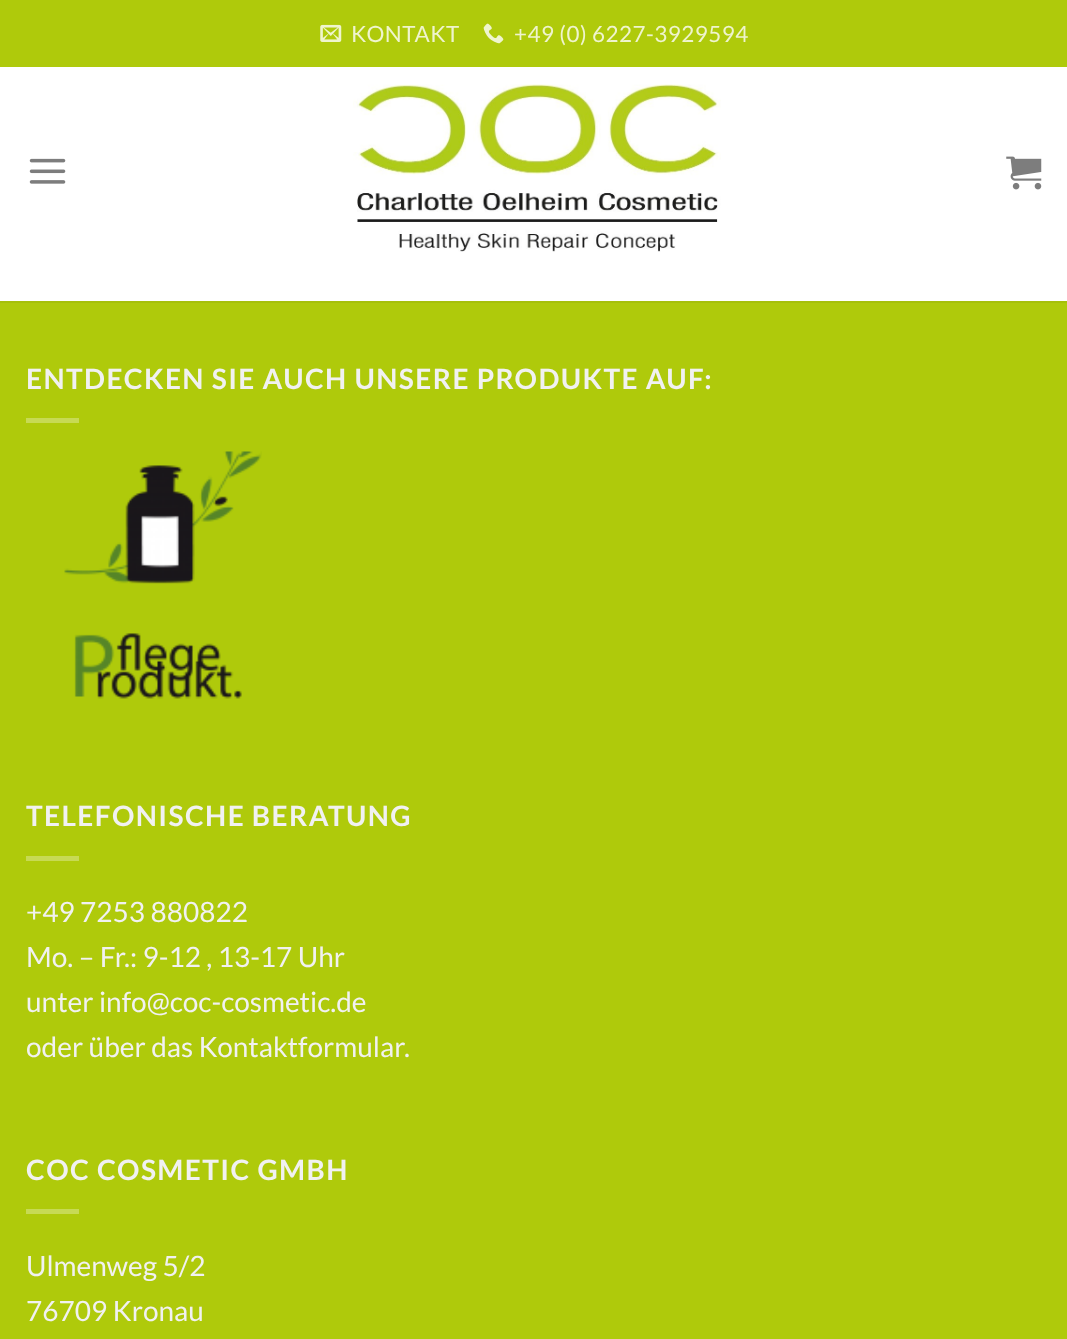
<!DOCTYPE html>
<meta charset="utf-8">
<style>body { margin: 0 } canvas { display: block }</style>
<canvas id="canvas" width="1067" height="1339"></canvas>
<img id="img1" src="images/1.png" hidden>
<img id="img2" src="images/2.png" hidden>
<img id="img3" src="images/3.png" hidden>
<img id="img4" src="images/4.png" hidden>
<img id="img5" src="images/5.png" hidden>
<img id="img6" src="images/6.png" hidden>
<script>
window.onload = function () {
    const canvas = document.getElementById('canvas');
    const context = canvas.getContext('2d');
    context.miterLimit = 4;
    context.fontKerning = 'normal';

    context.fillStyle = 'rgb(255, 255, 255)';
    context.fillRect(0, 0, 1067, 1339);
    context.fillStyle = 'rgb(175, 202, 11)';
    context.fillRect(0, 0, 1067, 67);
    context.drawImage(document.getElementById('img1'), 320, 24, 22, 18);
    context.drawImage(document.getElementById('img2'), 483, 23, 21, 21);
    context.drawImage(document.getElementById('img3'), 29, 158, 37, 26);
    context.drawImage(document.getElementById('img4'), 353, 84, 368, 168);
    context.drawImage(document.getElementById('img5'), 1006, 156, 36, 34);
    context.fillRect(0, 303, 1067, 1036);
    context.fillStyle = 'rgb(166, 192, 10)';
    context.fillRect(0, 301, 1067, 2);
    context.fillStyle = 'rgb(199, 218, 84)';
    context.fillRect(26, 418, 53, 5);
    context.drawImage(document.getElementById('img6'), 64, 451, 198, 248);
    context.fillRect(26, 856, 53, 5);
    context.fillRect(26, 1209, 53, 5);
    context.letterSpacing = '0.5px';
    context.font = '22.4px Lato';
    context.fillStyle = 'rgb(239, 244, 206)';
    context.fillText('KONTAKT', 351, 42);
    context.fillText('+49 (0) 6227-3929594', 514, 42);
    context.letterSpacing = '1.4px';
    context.font = 'bold 28px Lato';
    context.fillStyle = 'rgb(241, 241, 241)';
    context.fillText('ENTDECKEN SIE AUCH UNSERE PRODUKTE AUF:', 26, 389);
    context.fillText('TELEFONISCHE BERATUNG', 26, 826);
    context.letterSpacing = '0px';
    context.font = '28px Lato';
    context.fillText('+49 7253 880822', 26, 922);
    context.fillText('Mo. – Fr.: 9-12 , 13-17 Uhr', 26, 967);
    context.fillText('unter info@coc-cosmetic.de', 26, 1012);
    context.fillText('oder über das Kontaktformular', 26, 1057);
    context.fillText('.', 404, 1057);
    context.letterSpacing = '1.4px';
    context.font = 'bold 28px Lato';
    context.fillText('COC COSMETIC GMBH', 26, 1180);
    context.letterSpacing = '0px';
    context.font = '28px Lato';
    context.fillText('Ulmenweg 5/2', 26, 1276);
    context.fillText('76709 Kronau', 26, 1321);
};
</script>
